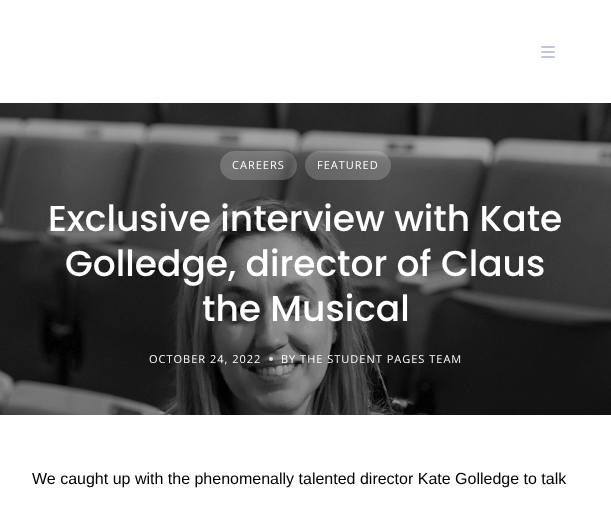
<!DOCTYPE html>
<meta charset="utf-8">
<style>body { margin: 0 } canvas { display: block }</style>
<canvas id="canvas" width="611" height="507"></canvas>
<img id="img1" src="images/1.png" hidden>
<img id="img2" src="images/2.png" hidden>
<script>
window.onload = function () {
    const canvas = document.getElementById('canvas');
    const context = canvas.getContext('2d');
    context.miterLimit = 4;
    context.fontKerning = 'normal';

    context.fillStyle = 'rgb(255, 255, 255)';
    context.fillRect(0, 0, 611, 507);
    context.drawImage(document.getElementById('img1'), 541, 46, 14, 12);
    context.drawImage(document.getElementById('img2'), 0, 103, 611, 312);
    context.fillStyle = 'rgba(255, 255, 255, 0.2)';
    context.beginPath();
    context.roundRect(220, 151, 77, 29, 14.5);
    context.fill();
    context.beginPath();
    context.roundRect(305, 151, 86, 29, 14.5);
    context.fill();
    context.fillStyle = 'rgba(255, 255, 255, 0.8)';
    context.beginPath();
    context.arc(271, 359, 2, 0, 2 * Math.PI);
    context.fill();
    context.letterSpacing = '1px';
    context.font = '11px Open Sans';
    context.fillStyle = 'rgb(255, 255, 255)';
    context.fillText('CAREERS', 232, 169);
    context.fillText('FEATURED', 317, 169);
    context.letterSpacing = '0px';
    context.font = '500 36px Poppins';
    context.fillText('Exclusive interview with Kate', 48, 231);
    context.fillText('Golledge, director of Claus', 65, 276);
    context.fillText('the Musical', 202, 321);
    context.letterSpacing = '1px';
    context.font = '11px Open Sans';
    context.fillText('OCTOBER 24, 2022', 149, 363);
    context.fillText('BY THE STUDENT PAGES TEAM', 281, 363);
    context.letterSpacing = '0px';
    context.font = '16px Liberation Sans';
    context.fillStyle = 'rgb(0, 0, 0)';
    context.fillText('We caught up with the phenomenally talented director Kate Golledge to talk', 32, 484);
};
</script>
